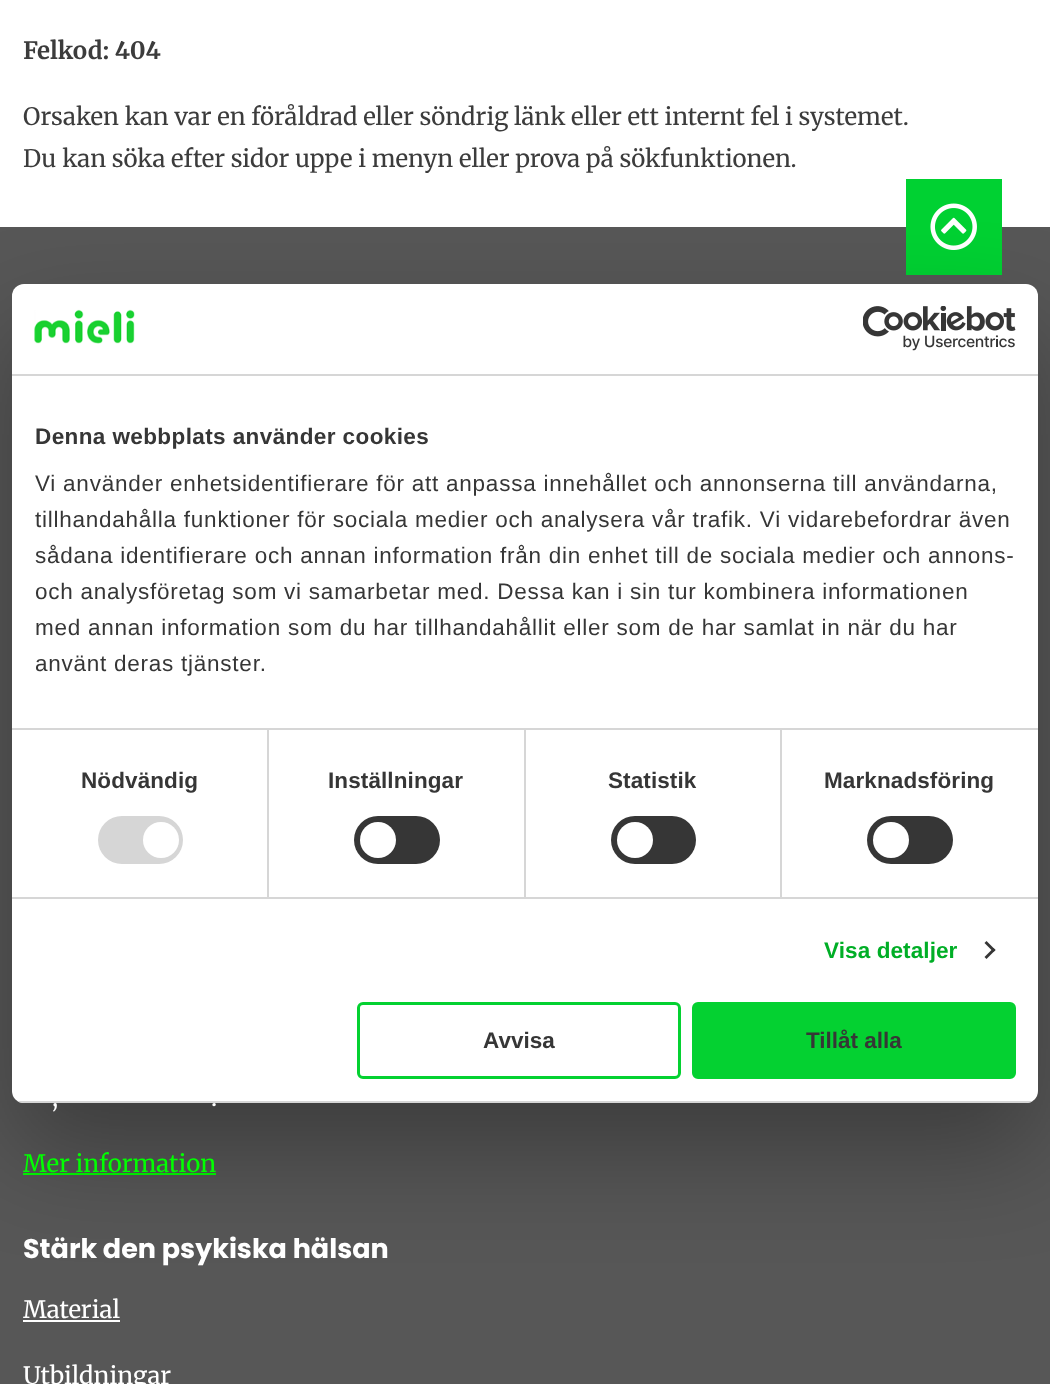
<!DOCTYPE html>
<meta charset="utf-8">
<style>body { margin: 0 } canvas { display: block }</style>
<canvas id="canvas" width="1050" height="1384"></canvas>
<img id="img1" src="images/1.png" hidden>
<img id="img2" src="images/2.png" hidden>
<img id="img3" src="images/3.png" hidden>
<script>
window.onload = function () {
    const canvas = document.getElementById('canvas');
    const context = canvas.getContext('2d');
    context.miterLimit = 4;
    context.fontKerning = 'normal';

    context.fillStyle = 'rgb(255, 255, 255)';
    context.fillRect(0, 0, 1050, 1384);
    context.fillStyle = 'rgb(87, 87, 87)';
    context.fillRect(0, 227, 1050, 1157);
    context.fillStyle = 'rgb(0, 209, 50)';
    context.fillRect(906, 179, 96, 96);
    context.drawImage(document.getElementById('img1'), 930, 203, 47, 47);
    context.fillStyle = 'rgb(0, 255, 0)';
    context.fillRect(23, 1173, 193, 2);
    context.fillStyle = 'rgb(255, 255, 255)';
    context.fillRect(23, 1320, 97, 2);
    context.fillStyle = 'rgba(0, 0, 0, 0.3)';
    context.filter = 'blur(51px)';
    context.beginPath();
    context.roundRect(12, 332, 1026, 819, 12);
    context.fill();
    context.filter = 'none';
    context.fillStyle = 'rgb(255, 255, 255)';
    context.beginPath();
    context.roundRect(12, 284, 1026, 819, 12);
    context.fill();
    context.fillStyle = 'rgb(214, 214, 214)';
    context.fillRect(12, 374, 1026, 2);
    context.drawImage(document.getElementById('img2'), 34, 309, 101, 35);
    context.drawImage(document.getElementById('img3'), 863, 306, 153, 45);
    context.fillRect(267, 729, 2, 168);
    context.fillRect(524, 729, 2, 168);
    context.fillRect(780, 729, 2, 168);
    context.fillRect(12, 728, 1026, 2);
    context.fillRect(12, 897, 1026, 2);
    context.beginPath();
    context.roundRect(98, 816, 85, 48, 24);
    context.fill();
    context.fillStyle = 'rgb(255, 255, 255)';
    context.beginPath();
    context.arc(161, 840, 18, 0, 2 * Math.PI);
    context.fill();
    context.fillStyle = 'rgb(54, 54, 54)';
    context.beginPath();
    context.roundRect(354, 816, 86, 48, 24);
    context.fill();
    context.fillStyle = 'rgb(255, 255, 255)';
    context.beginPath();
    context.arc(378, 840, 18, 0, 2 * Math.PI);
    context.fill();
    context.fillStyle = 'rgb(54, 54, 54)';
    context.beginPath();
    context.roundRect(611, 816, 85, 48, 24);
    context.fill();
    context.fillStyle = 'rgb(255, 255, 255)';
    context.beginPath();
    context.arc(635, 840, 18, 0, 2 * Math.PI);
    context.fill();
    context.fillStyle = 'rgb(54, 54, 54)';
    context.beginPath();
    context.roundRect(867, 816, 86, 48, 24);
    context.fill();
    context.fillStyle = 'rgb(255, 255, 255)';
    context.beginPath();
    context.arc(891, 840, 18, 0, 2 * Math.PI);
    context.fill();
    context.fillStyle = 'rgb(54, 54, 54)';
    context.beginPath();
    context.moveTo(986.5, 941);
    context.lineTo(995.5, 950);
    context.lineTo(993.5, 952);
    context.lineTo(984.5, 943);
    context.closePath();
    context.fill();
    context.beginPath();
    context.moveTo(993.5, 948);
    context.lineTo(995.5, 950);
    context.lineTo(986.5, 959);
    context.lineTo(984.5, 957);
    context.closePath();
    context.fill();
    context.beginPath();
    context.roundRect(358.5, 1003.5, 321, 74, 4.5);
    context.strokeStyle = 'rgb(4, 209, 49)';
    context.lineWidth = 3;
    context.stroke();
    context.fillStyle = 'rgb(4, 209, 49)';
    context.beginPath();
    context.roundRect(693.5, 1003.5, 321, 74, 4.5);
    context.fill();
    context.stroke();
    context.font = 'bold 24px Merriweather';
    context.fillStyle = 'rgb(60, 60, 60)';
    context.fillText('Felkod: 404', 23, 59);
    context.font = '24px Merriweather';
    context.fillText('Orsaken kan var en föråldrad eller söndrig länk eller ett internt fel i systemet.', 23, 125);
    context.fillText('Du kan söka efter sidor uppe i menyn eller prova på sökfunktionen.', 23, 167);
    context.fillStyle = 'rgb(255, 255, 255)';
    context.fillText(',', 52, 1106);
    context.fillText('.', 211, 1106);
    context.fillStyle = 'rgb(0, 255, 0)';
    context.fillText('Mer information', 23, 1172);
    context.font = 'bold 27px Poppins';
    context.fillStyle = 'rgb(255, 255, 255)';
    context.fillText('Stärk den psykiska hälsan', 23, 1258);
    context.font = '24px Merriweather';
    context.fillText('Material', 23, 1318);
    context.fillText('Utbildningar', 23, 1384);
    context.letterSpacing = '0.4px';
    context.font = 'bold 22.5px Liberation Sans';
    context.fillStyle = 'rgb(54, 54, 54)';
    context.fillText('Denna webbplats använder cookies', 35, 444);
    context.letterSpacing = '0.75px';
    context.font = '22.5px Liberation Sans';
    context.fillText('Vi använder enhetsidentifierare för att anpassa innehållet och annonserna till användarna,', 35, 491);
    context.fillText('tillhandahålla funktioner för sociala medier och analysera vår trafik. Vi vidarebefordrar även', 35, 527);
    context.fillText('sådana identifierare och annan information från din enhet till de sociala medier och annons-', 35, 563);
    context.fillText('och analysföretag som vi samarbetar med. Dessa kan i sin tur kombinera informationen', 35, 599);
    context.fillText('med annan information som du har tillhandahållit eller som de har samlat in när du har', 35, 635);
    context.fillText('använt deras tjänster.', 35, 671);
    context.letterSpacing = '0.1px';
    context.font = 'bold 22.5px Liberation Sans';
    context.fillText('Nödvändig', 81, 788);
    context.fillText('Inställningar', 328, 788);
    context.fillText('Statistik', 608, 788);
    context.fillText('Marknadsföring', 824, 788);
    context.fillStyle = 'rgb(0, 174, 38)';
    context.fillText('Visa detaljer', 824, 958);
    context.save();
    context.beginPath();
    context.roundRect(12, 284, 1026, 819, 12);
    context.clip();
    context.fillStyle = 'rgb(214, 214, 214)';
    context.fillRect(12, 1101, 1026, 2);
    context.restore();
    context.letterSpacing = '0px';
    context.fillStyle = 'rgb(54, 54, 54)';
    context.fillText('Avvisa', 483, 1048);
    context.fillText('Tillåt alla', 806, 1048);
};
</script>
